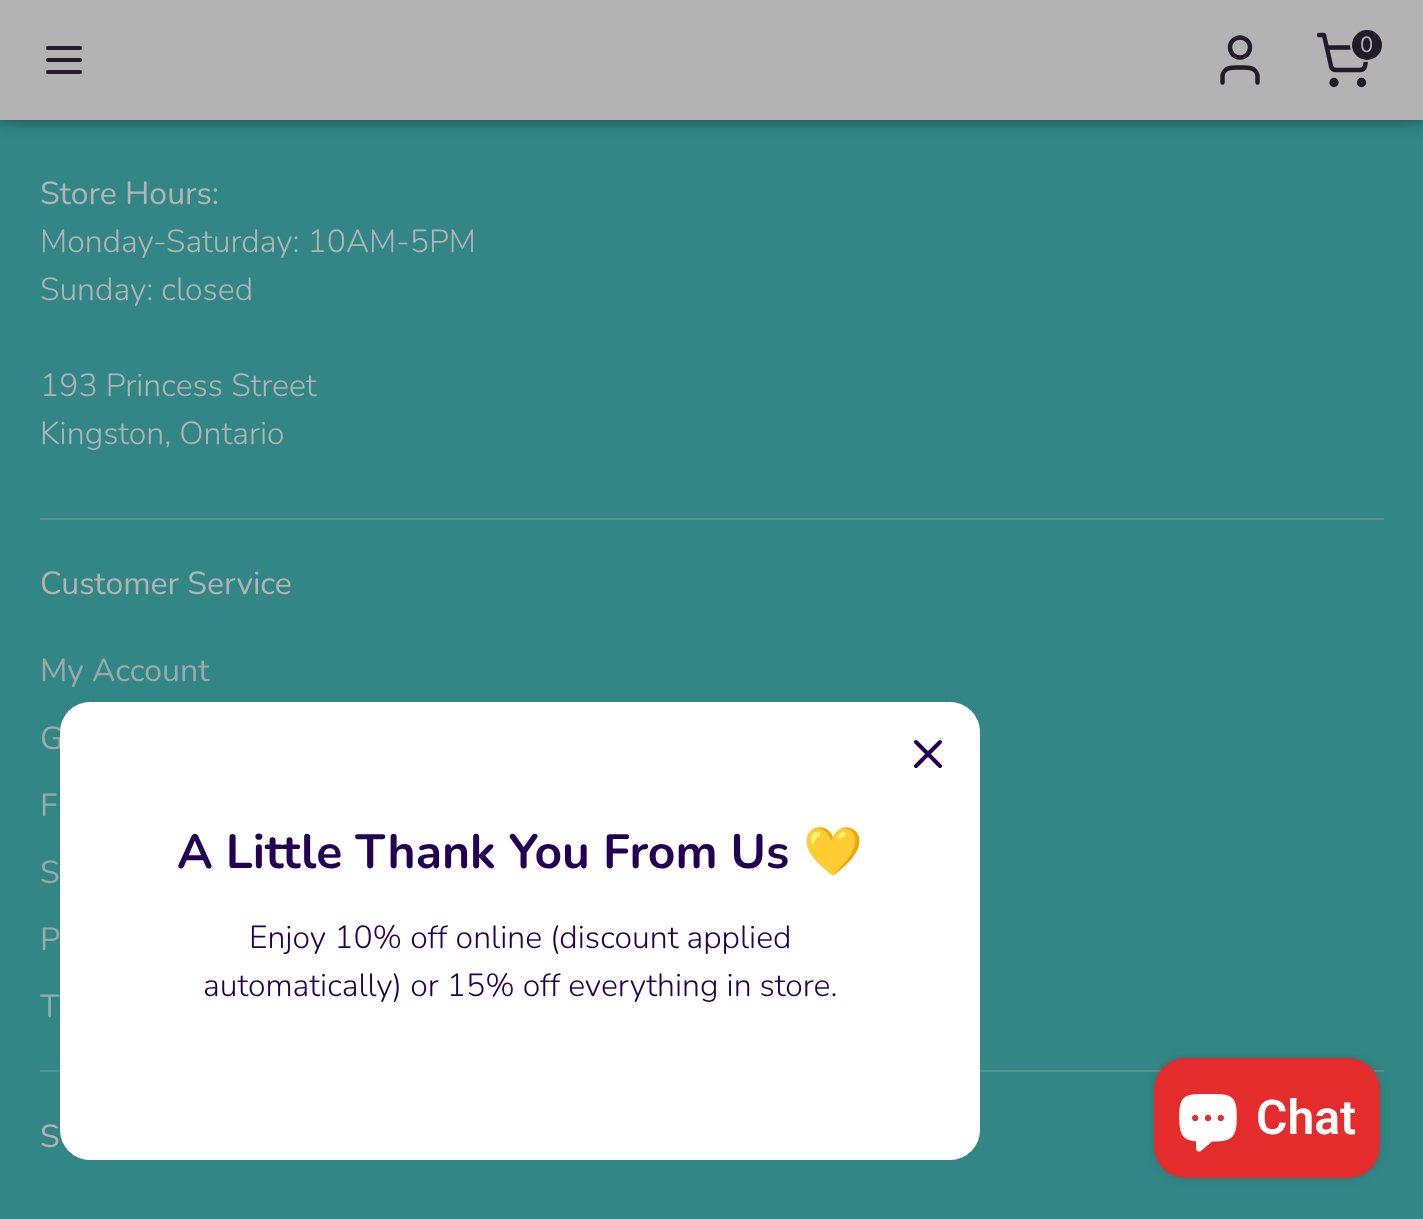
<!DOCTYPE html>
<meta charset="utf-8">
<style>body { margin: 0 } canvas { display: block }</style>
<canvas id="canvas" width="1423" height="1219"></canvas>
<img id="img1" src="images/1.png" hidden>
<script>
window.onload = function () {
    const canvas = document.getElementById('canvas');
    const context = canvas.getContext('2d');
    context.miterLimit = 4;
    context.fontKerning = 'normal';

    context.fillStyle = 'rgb(50, 135, 134)';
    context.fillRect(0, 0, 1423, 1219);
    context.fillStyle = 'rgba(0, 0, 0, 0.75)';
    context.filter = 'blur(10px)';
    context.beginPath();
    context.rect(0, -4, 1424, 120);
    context.fill();
    context.filter = 'none';
    context.fillStyle = 'rgb(179, 179, 179)';
    context.fillRect(0, 0, 1423, 120);
    context.beginPath();
    context.moveTo(48, 60);
    context.lineTo(80, 60);
    context.moveTo(48, 48);
    context.lineTo(80, 48);
    context.moveTo(48, 72);
    context.lineTo(80, 72);
    context.strokeStyle = 'rgb(32, 27, 38)';
    context.lineWidth = 4;
    context.lineCap = 'round';
    context.lineJoin = 'round';
    context.stroke();
    context.beginPath();
    context.moveTo(1257.5, 82.5);
    context.lineTo(1257.5, 75.5);
    context.bezierCurveTo(1255.5, 66.5, 1247, 67.5, 1240, 67.5);
    context.bezierCurveTo(1233, 67.5, 1224.5, 66.5, 1222.5, 75.5);
    context.lineTo(1222.5, 82.5);
    context.lineWidth = 4.4;
    context.stroke();
    context.beginPath();
    context.arc(1240, 47.5, 10, 0, 2 * Math.PI);
    context.stroke();
    context.beginPath();
    context.arc(1334, 82.5, 2.5, 0, 2 * Math.PI);
    context.stroke();
    context.beginPath();
    context.arc(1361.5, 82.5, 2.5, 0, 2 * Math.PI);
    context.stroke();
    context.beginPath();
    context.moveTo(1319, 35);
    context.lineTo(1324, 35);
    context.lineTo(1331, 66);
    context.bezierCurveTo(1331.5, 68.5, 1333.5, 70, 1336, 70);
    context.lineTo(1360, 70);
    context.bezierCurveTo(1362.5, 70, 1364.5, 68.5, 1365, 66);
    context.lineTo(1369, 47.5);
    context.lineTo(1327, 47.5);
    context.stroke();
    context.fillStyle = 'rgb(32, 27, 38)';
    context.beginPath();
    context.arc(1367, 45, 16, 0, 2 * Math.PI);
    context.fill();
    context.strokeStyle = 'rgb(179, 179, 179)';
    context.lineWidth = 2;
    context.stroke();
    context.fillStyle = 'rgb(88, 148, 147)';
    context.fillRect(40, 518, 1344, 2);
    context.fillRect(40, 1070, 1344, 2);
    context.fillStyle = 'rgba(0, 0, 0, 0.15)';
    context.filter = 'blur(5px)';
    context.beginPath();
    context.roundRect(1154, 1058, 226, 120, 32);
    context.fill();
    context.filter = 'none';
    context.fillStyle = 'rgb(227, 44, 43)';
    context.beginPath();
    context.roundRect(1154, 1058, 226, 120, 32);
    context.fill();
    context.drawImage(document.getElementById('img1'), 1179, 1094, 58, 58);
    context.font = '22px Nunito';
    context.fillStyle = 'rgb(179, 179, 179)';
    context.fillText('0', 1360, 52);
    context.font = '32px Nunito';
    context.fillText('Store Hours:', 40, 204);
    context.font = '300 32px Nunito';
    context.fillText('Monday-Saturday: 10AM-5PM', 40, 252);
    context.fillText('Sunday: closed', 40, 300);
    context.fillText('193 Princess Street', 40, 396);
    context.fillText('Kingston, Ontario', 40, 444);
    context.font = '32px Nunito';
    context.fillText('Customer Service', 40, 594);
    context.fillStyle = 'rgb(153, 170, 169)';
    context.fillText('My Account', 40, 681);
    context.fillText('G', 40, 749);
    context.fillText('F', 40, 816);
    context.fillText('S', 40, 883);
    context.fillText('P', 40, 950);
    context.fillText('T', 40, 1017);
    context.fillStyle = 'rgb(179, 179, 179)';
    context.fillText('S', 40, 1147);
    context.fillStyle = 'rgb(255, 255, 255)';
    context.beginPath();
    context.roundRect(60, 702, 920, 458, 30);
    context.fill();
    context.beginPath();
    context.moveTo(940, 742);
    context.lineTo(916, 766);
    context.moveTo(916, 742);
    context.lineTo(940, 766);
    context.strokeStyle = 'rgb(35, 0, 81)';
    context.lineWidth = 4;
    context.lineJoin = 'miter';
    context.stroke();
    context.font = 'bold 48px Nunito';
    context.fillStyle = 'rgb(35, 0, 81)';
    context.fillText('A Little Thank You From Us', 177, 868);
    context.font = 'bold 48px Noto Color Emoji';
    context.fillText('💛', 803, 868);
    context.font = '300 32px Nunito';
    context.fillText('Enjoy 10% off online (discount applied', 249, 948);
    context.fillText('automatically) or 15% off everything in store.', 203, 996);
    context.font = '600 48px Roboto';
    context.fillStyle = 'rgb(255, 255, 255)';
    context.fillText('Chat', 1256, 1134);
};
</script>
